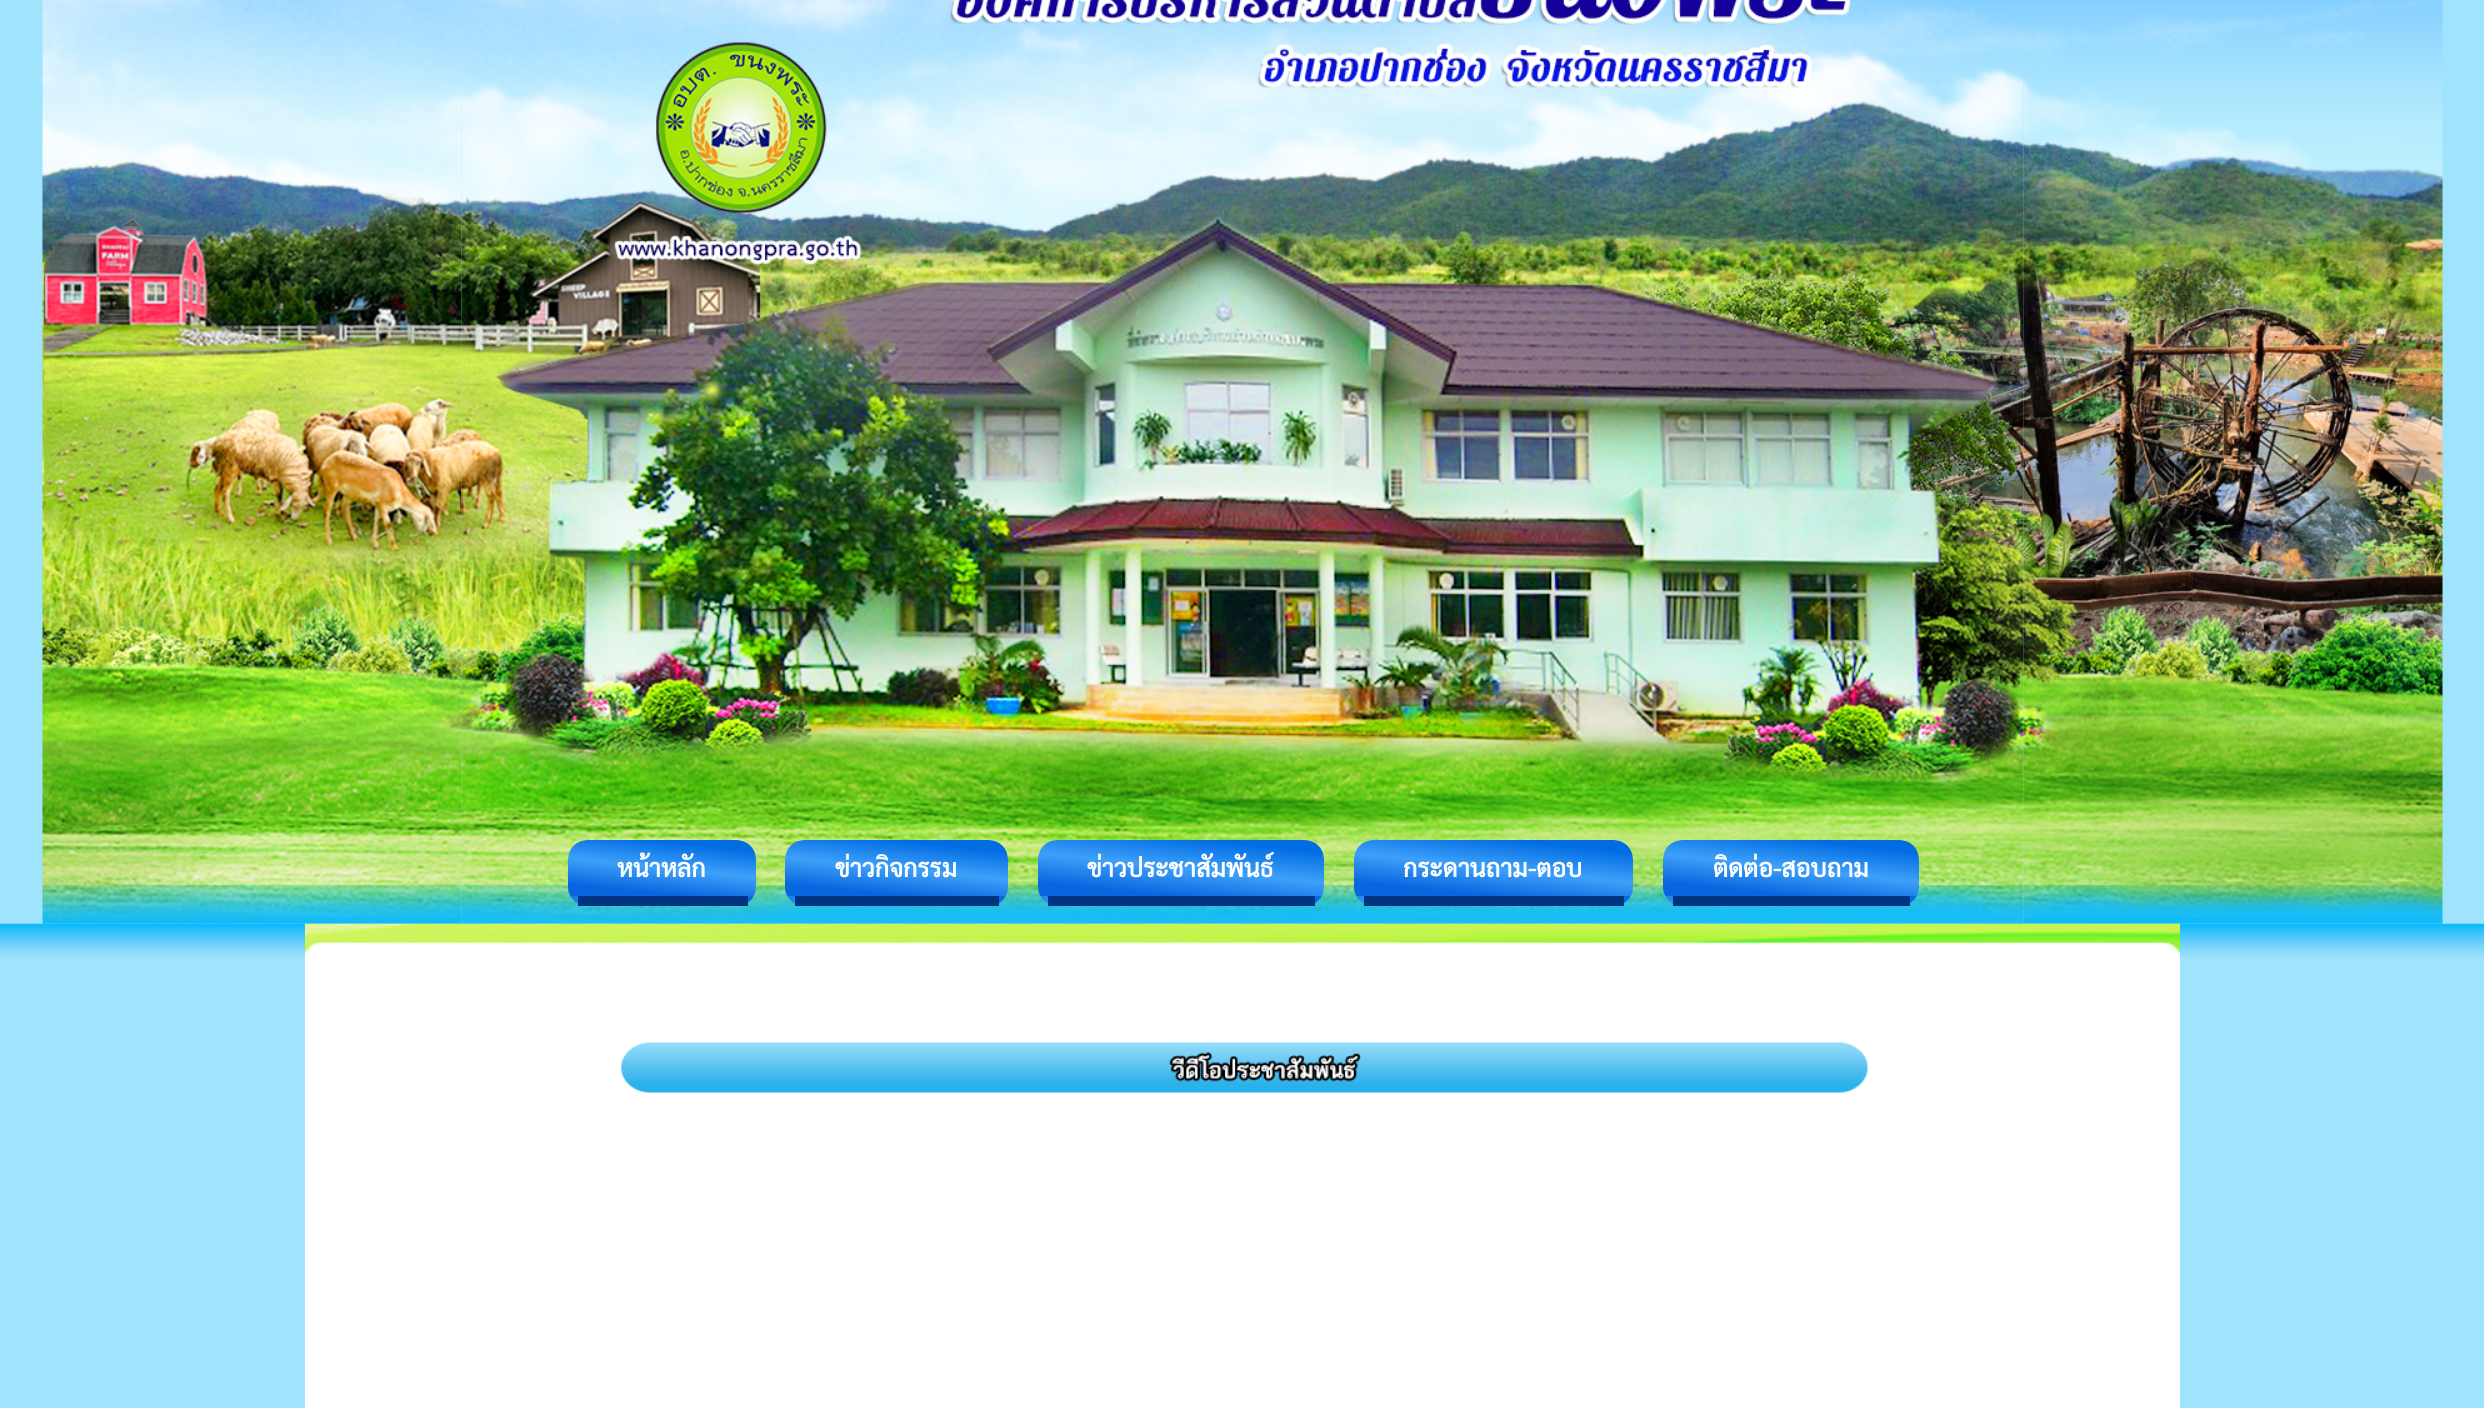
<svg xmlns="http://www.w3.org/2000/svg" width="2484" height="1408">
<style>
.a{font:bold 25px Sarabun;fill:#fff}
</style>
<defs>
<clipPath id="clip1"><rect x="568" y="840" width="188" height="66" rx="19"/></clipPath>
<linearGradient id="g1" gradientUnits="userSpaceOnUse" x1="658" y1="906" x2="666" y2="830"><stop offset="0.16" stop-color="#0866df"/><stop offset="0.5" stop-color="#3ea0f9"/><stop offset="0.85" stop-color="#026de3"/></linearGradient>
<linearGradient id="g2" gradientUnits="userSpaceOnUse" x1="658" y1="962" x2="666" y2="887"><stop offset="0.16" stop-color="#0866df"/><stop offset="0.5" stop-color="#3ea0f9"/><stop offset="0.85" stop-color="#026de3"/></linearGradient>
<clipPath id="clip2"><rect x="785" y="840" width="223" height="66" rx="19"/></clipPath>
<linearGradient id="g3" gradientUnits="userSpaceOnUse" x1="892" y1="908" x2="900" y2="829"><stop offset="0.16" stop-color="#0866df"/><stop offset="0.5" stop-color="#3ea0f9"/><stop offset="0.85" stop-color="#026de3"/></linearGradient>
<linearGradient id="g4" gradientUnits="userSpaceOnUse" x1="892" y1="964" x2="900" y2="885"><stop offset="0.16" stop-color="#0866df"/><stop offset="0.5" stop-color="#3ea0f9"/><stop offset="0.85" stop-color="#026de3"/></linearGradient>
<clipPath id="clip3"><rect x="1038" y="840" width="286" height="66" rx="19"/></clipPath>
<linearGradient id="g5" gradientUnits="userSpaceOnUse" x1="1176" y1="911" x2="1185" y2="825"><stop offset="0.16" stop-color="#0866df"/><stop offset="0.5" stop-color="#3ea0f9"/><stop offset="0.85" stop-color="#026de3"/></linearGradient>
<linearGradient id="g6" gradientUnits="userSpaceOnUse" x1="1176" y1="967" x2="1185" y2="882"><stop offset="0.16" stop-color="#0866df"/><stop offset="0.5" stop-color="#3ea0f9"/><stop offset="0.85" stop-color="#026de3"/></linearGradient>
<clipPath id="clip4"><rect x="1354" y="840" width="279" height="66" rx="19"/></clipPath>
<linearGradient id="g7" gradientUnits="userSpaceOnUse" x1="1489" y1="910" x2="1498" y2="826"><stop offset="0.16" stop-color="#0866df"/><stop offset="0.5" stop-color="#3ea0f9"/><stop offset="0.85" stop-color="#026de3"/></linearGradient>
<linearGradient id="g8" gradientUnits="userSpaceOnUse" x1="1489" y1="967" x2="1498" y2="882"><stop offset="0.16" stop-color="#0866df"/><stop offset="0.5" stop-color="#3ea0f9"/><stop offset="0.85" stop-color="#026de3"/></linearGradient>
<clipPath id="clip5"><rect x="1663" y="840" width="256" height="66" rx="19"/></clipPath>
<linearGradient id="g9" gradientUnits="userSpaceOnUse" x1="1786" y1="909" x2="1795" y2="827"><stop offset="0.16" stop-color="#0866df"/><stop offset="0.5" stop-color="#3ea0f9"/><stop offset="0.85" stop-color="#026de3"/></linearGradient>
<linearGradient id="g10" gradientUnits="userSpaceOnUse" x1="1786" y1="966" x2="1795" y2="883"><stop offset="0.16" stop-color="#0866df"/><stop offset="0.5" stop-color="#3ea0f9"/><stop offset="0.85" stop-color="#026de3"/></linearGradient>
</defs>
<rect width="100%" height="100%" fill="#9fe3fc"/>
<image href="1.png" x="42" y="0" width="420" height="924"/>
<image href="2.png" x="461" y="0" width="1563" height="924"/>
<image href="3.png" x="656" y="42" width="171" height="171"/>
<image href="4.png" x="950" y="0" width="901" height="89"/>
<g clip-path="url(#clip1)">
<path fill="url(#g1)" d="M587 840h150c10.5 0 19 8.5 19 19v37h-188v-37c0-10.5 8.5-19 19-19z"/>
<path fill="url(#g2)" d="M570 896h184v8H570z"/>
</g>
<path fill="#003380" d="M578 896h170v10H578z"/>
<g clip-path="url(#clip2)">
<path fill="url(#g3)" d="M804 840h185c10.5 0 19 8.5 19 19v37h-223v-37c0-10.5 8.5-19 19-19z"/>
<path fill="url(#g4)" d="M787 896h219v8H787z"/>
</g>
<path fill="#003380" d="M795 896h204v10H795z"/>
<g clip-path="url(#clip3)">
<path fill="url(#g5)" d="M1057 840h248c10.5 0 19 8.5 19 19v37h-286v-37c0-10.5 8.5-19 19-19z"/>
<path fill="url(#g6)" d="M1040 896h282v8H1040z"/>
</g>
<path fill="#003380" d="M1048 896h267v10H1048z"/>
<g clip-path="url(#clip4)">
<path fill="url(#g7)" d="M1373 840h241c10.5 0 19 8.5 19 19v37h-279v-37c0-10.5 8.5-19 19-19z"/>
<path fill="url(#g8)" d="M1356 896h275v8H1356z"/>
</g>
<path fill="#003380" d="M1364 896h260v10H1364z"/>
<g clip-path="url(#clip5)">
<path fill="url(#g9)" d="M1682 840h218c10.5 0 19 8.5 19 19v37h-256v-37c0-10.5 8.5-19 19-19z"/>
<path fill="url(#g10)" d="M1665 896h252v8H1665z"/>
</g>
<path fill="#003380" d="M1673 896h237v10H1673z"/>
<image href="5.png" x="2023" y="0" width="420" height="924"/>
<image href="6.png" x="0" y="923" width="305" height="35"/>
<image href="7.png" x="305" y="923" width="1875" height="89"/>
<path fill="#fff" d="M305 1012h1875v396H305z"/>
<image href="8.png" x="621" y="1042" width="1247" height="51"/>
<image href="9.png" x="2180" y="923" width="304" height="35"/>
<text class="a" x="617" y="877">หน้าหลัก</text>
<text class="a" x="835" y="877">ข่าวกิจกรรม</text>
<text class="a" x="1087" y="877">ข่าวประชาสัมพันธ์</text>
<text class="a" x="1403" y="877">กระดานถาม-ตอบ</text>
<text class="a" x="1713" y="877">ติดต่อ-สอบถาม</text>
</svg>
